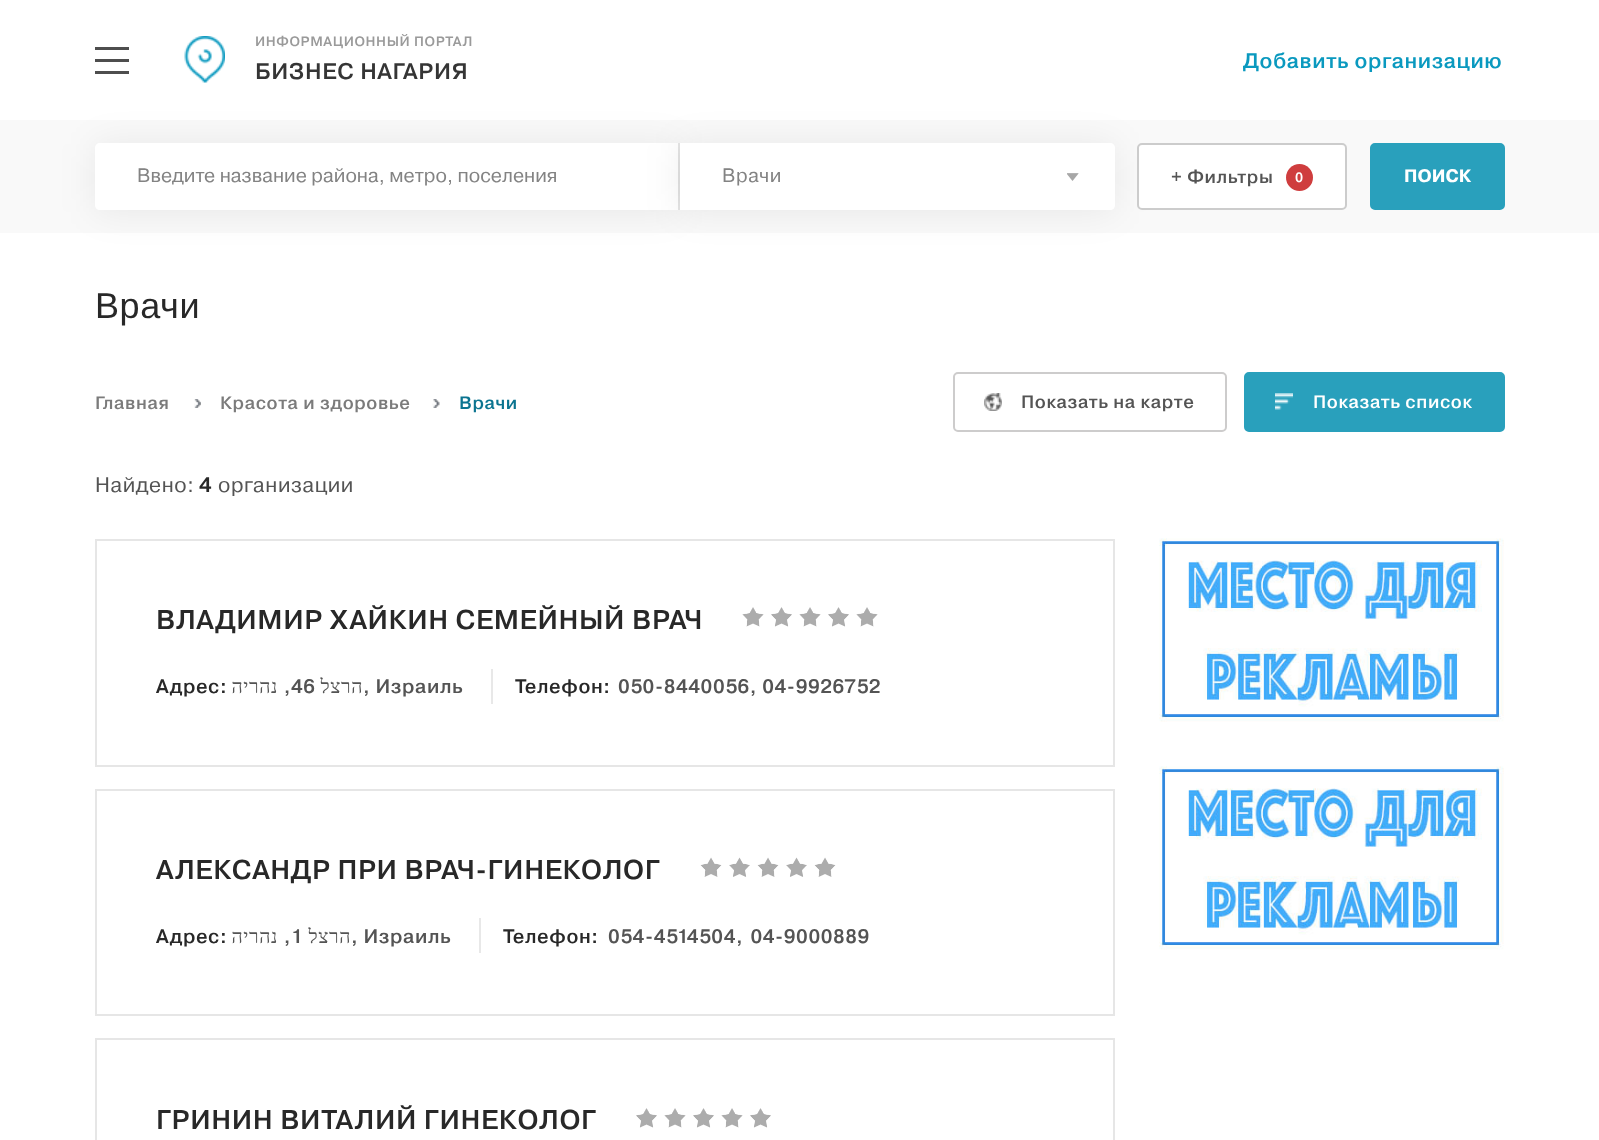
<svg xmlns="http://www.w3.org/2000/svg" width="1599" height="1140">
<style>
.a{font:500 13.5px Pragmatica;letter-spacing:0.6px;fill:#9a9a9a}
.b{font:500 22.5px Pragmatica;letter-spacing:0.6px;fill:#353535}
.c{font:500 21px Pragmatica;letter-spacing:0.6px;fill:#0a99bf}
.d{font:19.5px Pragmatica;fill:#838383}
.e{font:19.5px Pragmatica;letter-spacing:0.6px;fill:#838383}
.f{font:500 18px Pragmatica;letter-spacing:0.6px;fill:#545454}
.g{font:500 13.5px Pragmatica;letter-spacing:0.6px;fill:#fff}
.h{font:bold 18px Pragmatica;fill:#fff}
.i{font:36px Liberation Sans;letter-spacing:0.6px;fill:#282828}
.j{font:500 18px Pragmatica;letter-spacing:0.6px;fill:#7b7b7b}
.k{font:500 18px Pragmatica;letter-spacing:0.6px;fill:#0b7490}
.l{font:500 18px Pragmatica;letter-spacing:0.6px;fill:#fff}
.m{font:21px Pragmatica;letter-spacing:0.6px;fill:#545454}
.n{font:500 21px Pragmatica;letter-spacing:0.6px;fill:#282828}
.o{font:500 27px Pragmatica;letter-spacing:0.6px;fill:#282828}
.p{font:500 19.5px Pragmatica;letter-spacing:0.6px;fill:#282828}
.q{font:19.5px Liberation Serif;letter-spacing:0.6px;direction:rtl;fill:#545454}
.r{font:500 19.5px Pragmatica;letter-spacing:0.6px;direction:rtl;fill:#545454}
.s{font:500 19.5px Pragmatica;letter-spacing:0.6px;fill:#545454}
</style>
<rect width="100%" height="100%" fill="#fff"/>
<path fill="#4e4e4e" d="M95 47h34v3H95z"/>
<path fill="#4e4e4e" d="M95 59h34v3H95z"/>
<path fill="#4e4e4e" d="M95 71h34v3H95z"/>
<image href="1.png" x="184" y="36" width="41" height="47"/>
<path fill="#f9f9f9" d="M0 120h1599v113H0z"/>
<path fill="#e9e9e9" d="M678 143h2v67H678z"/>
<rect fill="#00000012" filter="blur(18px)" x="95" y="144" width="583" height="68" rx="5"/>
<path fill="#fff" d="M100 143h578v67h-578c-3 0-5-2-5-5v-57c0-3 2-5 5-5z"/>
<rect fill="#00000012" filter="blur(18px)" x="680" y="144" width="435" height="68" rx="5"/>
<path fill="#fff" d="M680 143h430c3 0 5 2 5 5v57c0 3-2 5-5 5h-430z"/>
<image href="2.png" x="1067" y="173" width="12" height="8"/>
<rect fill="#fff" x="1137" y="143" width="210" height="67" rx="5"/>
<rect fill="none" stroke="#5756564d" stroke-width="2" x="1138" y="144" width="208" height="65" rx="4"/>
<circle fill="#cf3d3e" cx="1299.5" cy="177.5" r="13.5"/>
<rect fill="#29a0bc" stroke="#29a0bc" stroke-width="2" x="1371" y="144" width="133" height="65" rx="4"/>
<image href="3.png" x="194" y="399" width="7" height="9"/>
<image href="4.png" x="432" y="399" width="8" height="9"/>
<rect fill="none" stroke="#cdcccc" stroke-width="2" x="954" y="373" width="272" height="58" rx="4"/>
<image href="5.png" x="984" y="393" width="18" height="18"/>
<rect fill="#29a0bc" stroke="#29a0bc" stroke-width="2" x="1245" y="373" width="259" height="58" rx="4"/>
<image href="6.png" x="1275" y="393" width="18" height="17"/>
<path fill="none" stroke="#e6e6e6" stroke-width="2" d="M96 540h1018v226H96z"/>
<image href="7.png" x="742" y="607" width="22" height="20"/>
<image href="8.png" x="771" y="607" width="21" height="20"/>
<image href="7.png" x="799" y="607" width="22" height="20"/>
<image href="8.png" x="828" y="607" width="21" height="20"/>
<image href="7.png" x="856" y="607" width="22" height="20"/>
<path fill="#e8e8e8" d="M491 669h2v35H491z"/>
<path fill="none" stroke="#e6e6e6" stroke-width="2" d="M96 790h1018v225H96z"/>
<image href="9.png" x="700" y="857" width="22" height="20"/>
<image href="10.png" x="729" y="857" width="21" height="20"/>
<image href="9.png" x="757" y="857" width="22" height="20"/>
<image href="10.png" x="786" y="857" width="21" height="20"/>
<image href="9.png" x="814" y="857" width="22" height="20"/>
<path fill="#e8e8e8" d="M479 918h2v35H479z"/>
<path fill="none" stroke="#e6e6e6" stroke-width="2" d="M96 1039h1018v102H96z"/>
<image href="8.png" x="636" y="1108" width="21" height="20"/>
<image href="7.png" x="664" y="1108" width="22" height="20"/>
<image href="8.png" x="693" y="1108" width="21" height="20"/>
<image href="7.png" x="721" y="1108" width="22" height="20"/>
<image href="8.png" x="750" y="1108" width="21" height="20"/>
<image href="11.png" x="1159" y="538" width="345" height="184"/>
<image href="11.png" x="1159" y="766" width="345" height="184"/>
<text class="a" x="255" y="46">ИНФОРМАЦИОННЫЙ ПОРТАЛ</text>
<text class="b" x="255" y="79">БИЗНЕС НАГАРИЯ</text>
<text class="c" x="1243" y="68">Добавить организацию</text>
<text class="d" x="137" y="182">Введите название района, метро, поселения</text>
<text class="e" x="722" y="182">Врачи</text>
<text class="f" x="1171" y="183">+ Фильтры</text>
<text class="g" x="1295" y="182">0</text>
<text class="h" x="1404" y="182">ПОИСК</text>
<text class="i" x="95" y="318">Врачи</text>
<text class="j" x="95" y="409">Главная</text>
<text class="j" x="220" y="409">Красота и здоровье</text>
<text class="k" x="459" y="409">Врачи</text>
<text class="f" x="1021" y="408">Показать на карте</text>
<text class="l" x="1313" y="408">Показать список</text>
<text class="m" x="95" y="492">Найдено:</text>
<text class="n" x="199" y="492">4</text>
<text class="m" x="218" y="492">организации</text>
<text class="o" x="156" y="629">ВЛАДИМИР ХАЙКИН СЕМЕЙНЫЙ ВРАЧ</text>
<text class="p" x="156" y="693">Адрес:</text>
<text class="q" x="278" y="693">נהריה</text>
<text class="r" x="291" y="693">,</text>
<text class="s" x="291" y="693">46</text>
<text class="q" x="363" y="693">הרצל</text>
<text class="s" x="363" y="693">, Израиль</text>
<text class="p" x="515" y="693">Телефон:</text>
<text class="s" x="618" y="693">050-8440056, 04-9926752</text>
<text class="o" x="156" y="879">АЛЕКСАНДР ПРИ ВРАЧ-ГИНЕКОЛОГ</text>
<text class="p" x="156" y="943">Адрес:</text>
<text class="q" x="278" y="943">נהריה</text>
<text class="r" x="291" y="943">,</text>
<text class="s" x="291" y="943">1</text>
<text class="q" x="351" y="943">הרצל</text>
<text class="s" x="351" y="943">, Израиль</text>
<text class="p" x="503" y="943">Телефон:</text>
<text class="s" x="608" y="943" word-spacing="2">054-4514504, 04-9000889</text>
<text class="o" x="156" y="1129">ГРИНИН ВИТАЛИЙ ГИНЕКОЛОГ</text>
</svg>
